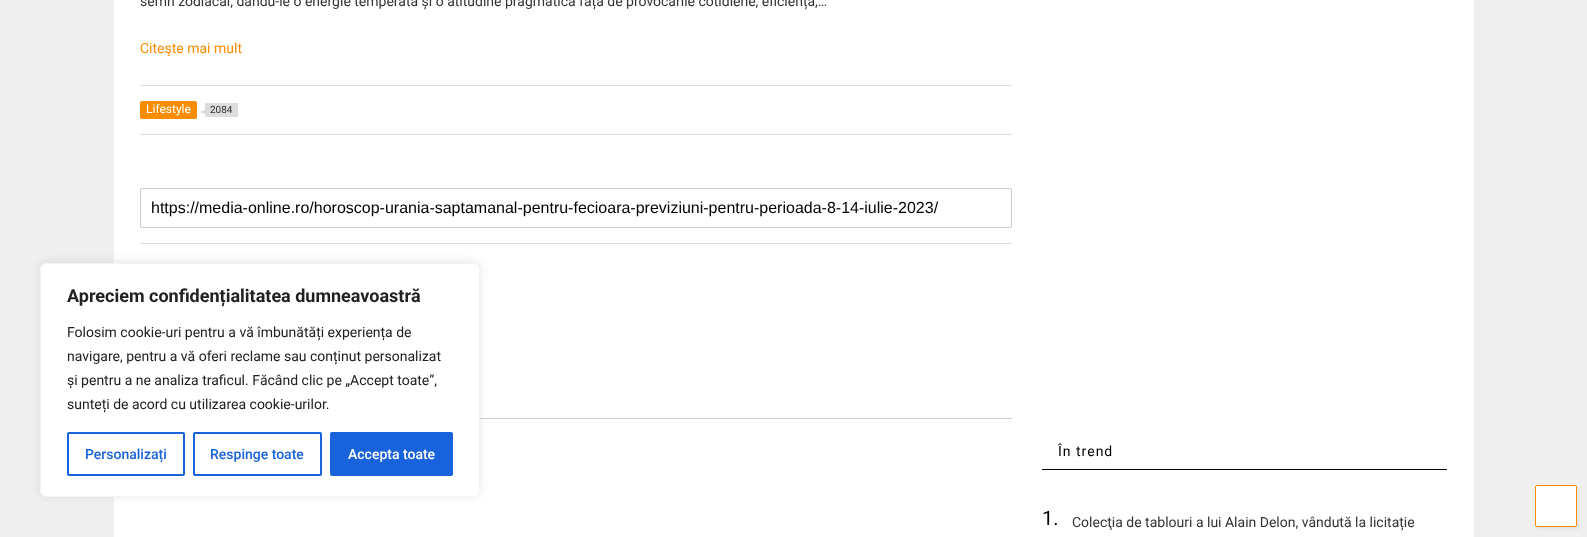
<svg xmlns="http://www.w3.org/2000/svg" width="1587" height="537">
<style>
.a{font:14px Roboto;fill:#333}
.b{font:14px Roboto;fill:#f88c00}
.c{font:12px Roboto;fill:#fff}
.d{font:10px Roboto;fill:#333}
.e{font:16px Liberation Sans;fill:#000}
.f{font:14px Roboto;letter-spacing:1px;fill:#000}
.g{font:20px Roboto;fill:#000}
.h{font:bold 18px Roboto;fill:#212121}
.i{font:14px Roboto;fill:#212121}
.j{font:500 14px Roboto;fill:#1863dc}
.k{font:500 14px Roboto;fill:#fff}
</style>
<rect width="100%" height="100%" fill="#efefef"/>
<path fill="#fff" d="M114 0h1360v537H114z"/>
<path fill="#ddd" d="M140 85h872v1H140z"/>
<rect fill="#f88c00" x="140" y="101" width="57" height="18" rx="2"/>
<path fill="#ddd" d="M205 103h33v14H205z"/>
<path fill="#ddd" d="M207 109v6l-7-3z"/>
<path fill="#ddd" d="M140 134h872v1H140z"/>
<rect fill="none" stroke="#ccc" x="140.5" y="188.5" width="871" height="39" rx="1.5"/>
<path fill="#ddd" d="M140 243h872v1H140z"/>
<path fill="#ccc" d="M480 418h532v1H480z"/>
<path fill="#000" d="M1042 469h405v1H1042z"/>
<rect fill="#acabab4d" filter="blur(5px)" x="40" y="262" width="440" height="234" rx="6"/>
<rect fill="#fff" stroke="#f4f4f4" x="40.5" y="263.5" width="439" height="233" rx="5.5"/>
<rect fill="none" stroke="#1863dc" stroke-width="2" x="68" y="433" width="116" height="42" rx="1"/>
<rect fill="none" stroke="#1863dc" stroke-width="2" x="194" y="433" width="127" height="42" rx="1"/>
<rect fill="#1863dc" stroke="#1863dc" stroke-width="2" x="331" y="433" width="121" height="42" rx="1"/>
<rect fill="#0000000d" filter="blur(1.5px)" x="1537" y="487" width="42" height="42" rx="2"/>
<rect fill="#fff" stroke="#f88c00" x="1535.5" y="485.5" width="41" height="41" rx="1.5"/>
<text class="a" x="140" y="6">semn zodiacal, dându-le o energie temperată și o atitudine pragmatică față de provocările cotidiene, eficiență,…</text>
<text class="b" x="140" y="53">Citeşte mai mult</text>
<text class="c" x="146" y="113">Lifestyle</text>
<text class="d" x="210" y="113">2084</text>
<text class="e" x="151" y="213">https://media-online.ro/horoscop-urania-saptamanal-pentru-fecioara-previziuni-pentru-perioada-8-14-iulie-2023/</text>
<text class="f" x="1058" y="456">În trend</text>
<text class="g" x="1042" y="525">1.</text>
<text class="a" x="1072" y="527">Colecţia de tablouri a lui Alain Delon, vândută la licitație</text>
<text class="h" x="67" y="302">Apreciem confidențialitatea dumneavoastră</text>
<text class="i" x="67" y="337">Folosim cookie-uri pentru a vă îmbunătăți experiența de</text>
<text class="i" x="67" y="361">navigare, pentru a vă oferi reclame sau conținut personalizat</text>
<text class="i" x="67" y="385">și pentru a ne analiza traficul. Făcând clic pe „Accept toate”,</text>
<text class="i" x="67" y="409">sunteți de acord cu utilizarea cookie-urilor.</text>
<text class="j" x="85" y="459">Personalizați</text>
<text class="j" x="210" y="459">Respinge toate</text>
<text class="k" x="348" y="459">Accepta toate</text>
</svg>
